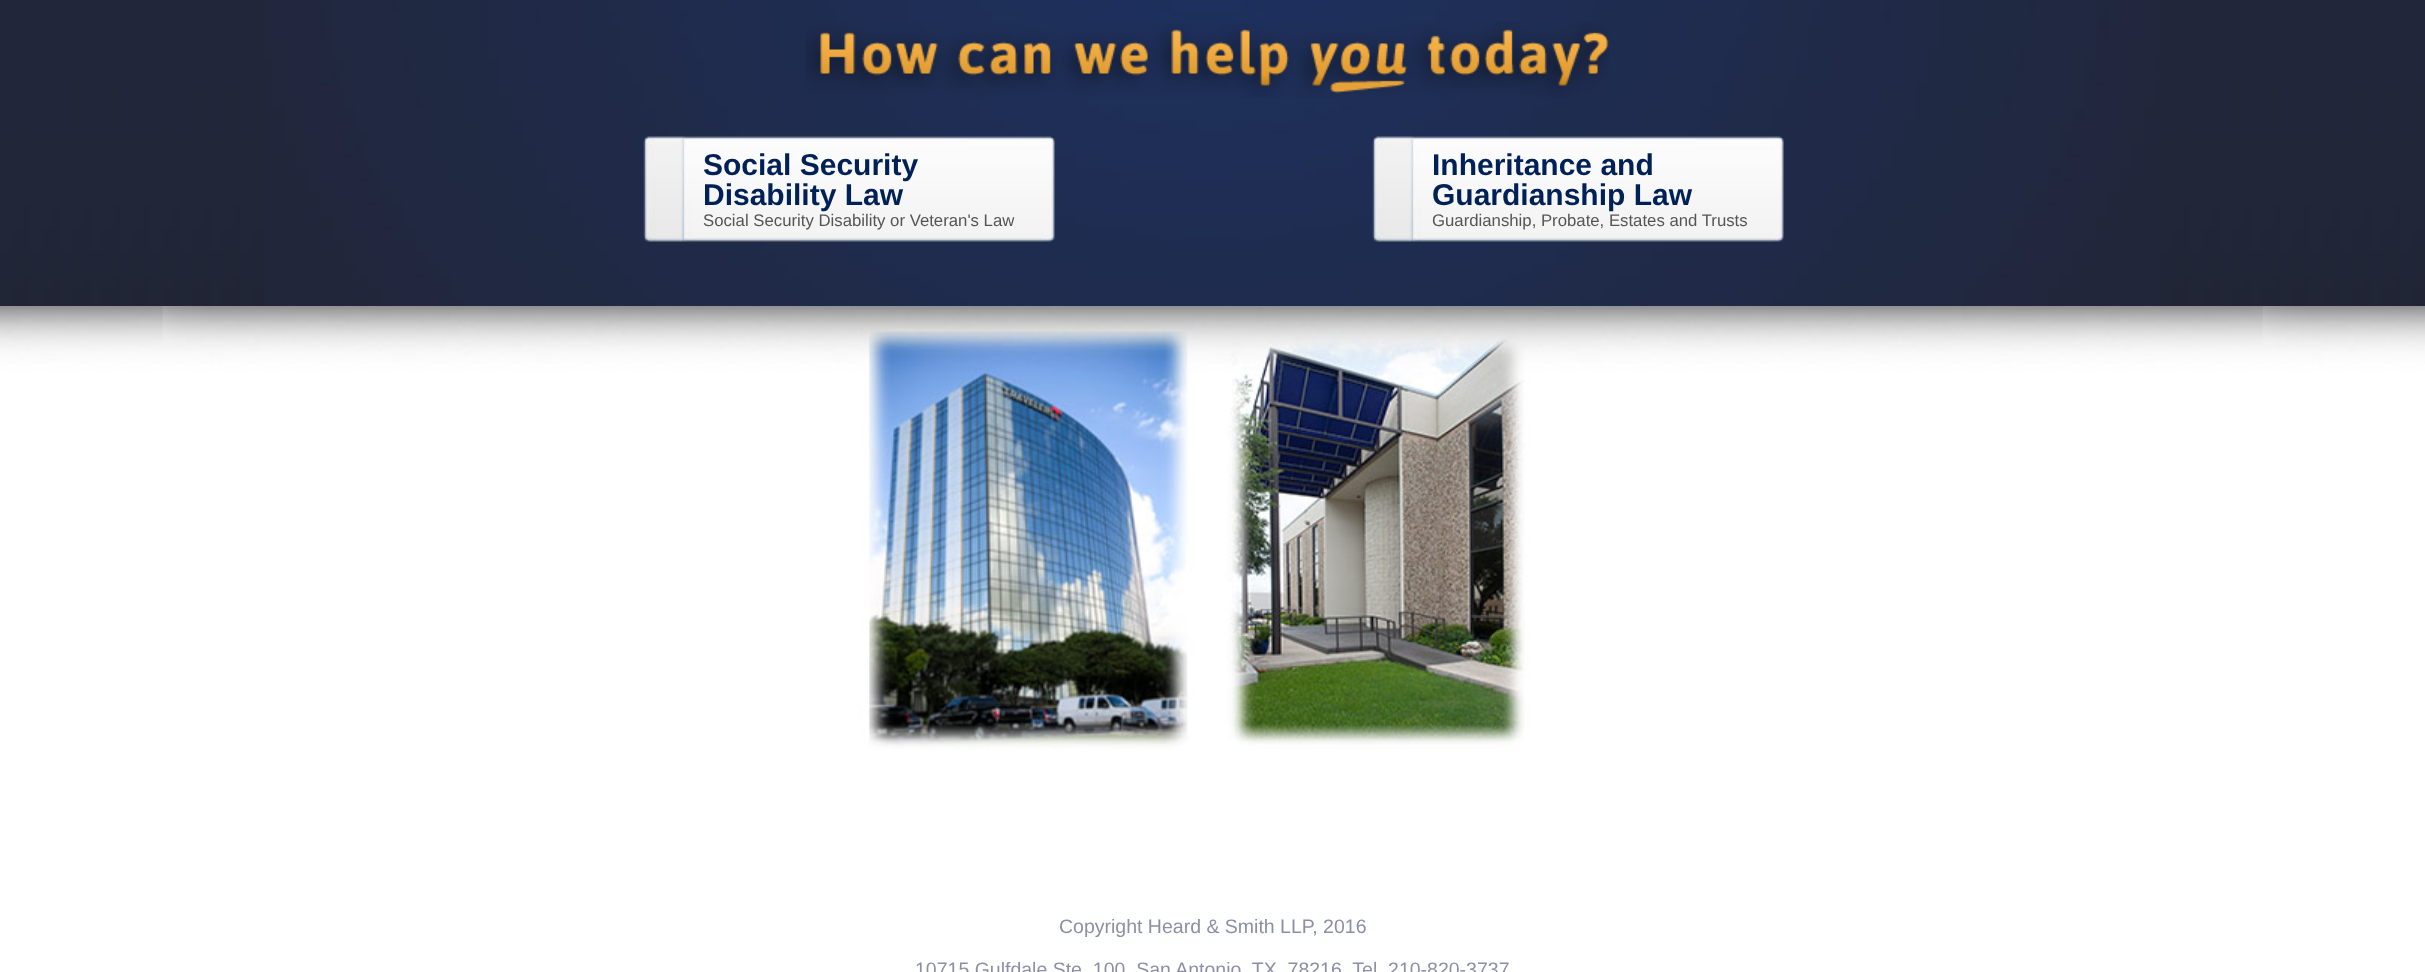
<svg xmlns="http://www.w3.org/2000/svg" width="2425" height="972">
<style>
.a{font:bold 30px Liberation Sans;fill:#002157}
.b{font:16.75px Liberation Sans;fill:#555}
.c{font:19.5px Liberation Sans;fill:#8d8fa7}
</style>
<rect width="100%" height="100%" fill="#fff"/>
<image href="1.png" x="0" y="0" width="2425" height="306"/>
<image href="2.png" x="264" y="0" width="1896" height="306"/>
<image href="3.png" x="805" y="22" width="804" height="76"/>
<image href="4.png" x="643" y="136" width="412" height="106"/>
<image href="5.png" x="1372" y="136" width="412" height="106"/>
<image href="6.png" x="0" y="306" width="2425" height="444"/>
<text class="a" x="703" y="175">Social Security</text>
<text class="a" x="703" y="205">Disability Law</text>
<text class="b" x="703" y="226">Social Security Disability or Veteran's Law</text>
<text class="a" x="1432" y="175">Inheritance and</text>
<text class="a" x="1432" y="205">Guardianship Law</text>
<text class="b" x="1432" y="226">Guardianship, Probate, Estates and Trusts</text>
<text class="c" x="1059" y="933">Copyright Heard &amp; Smith LLP, 2016</text>
<text class="c" x="915" y="976">10715 Gulfdale Ste. 100, San Antonio, TX, 78216, Tel. 210-820-3737</text>
</svg>
